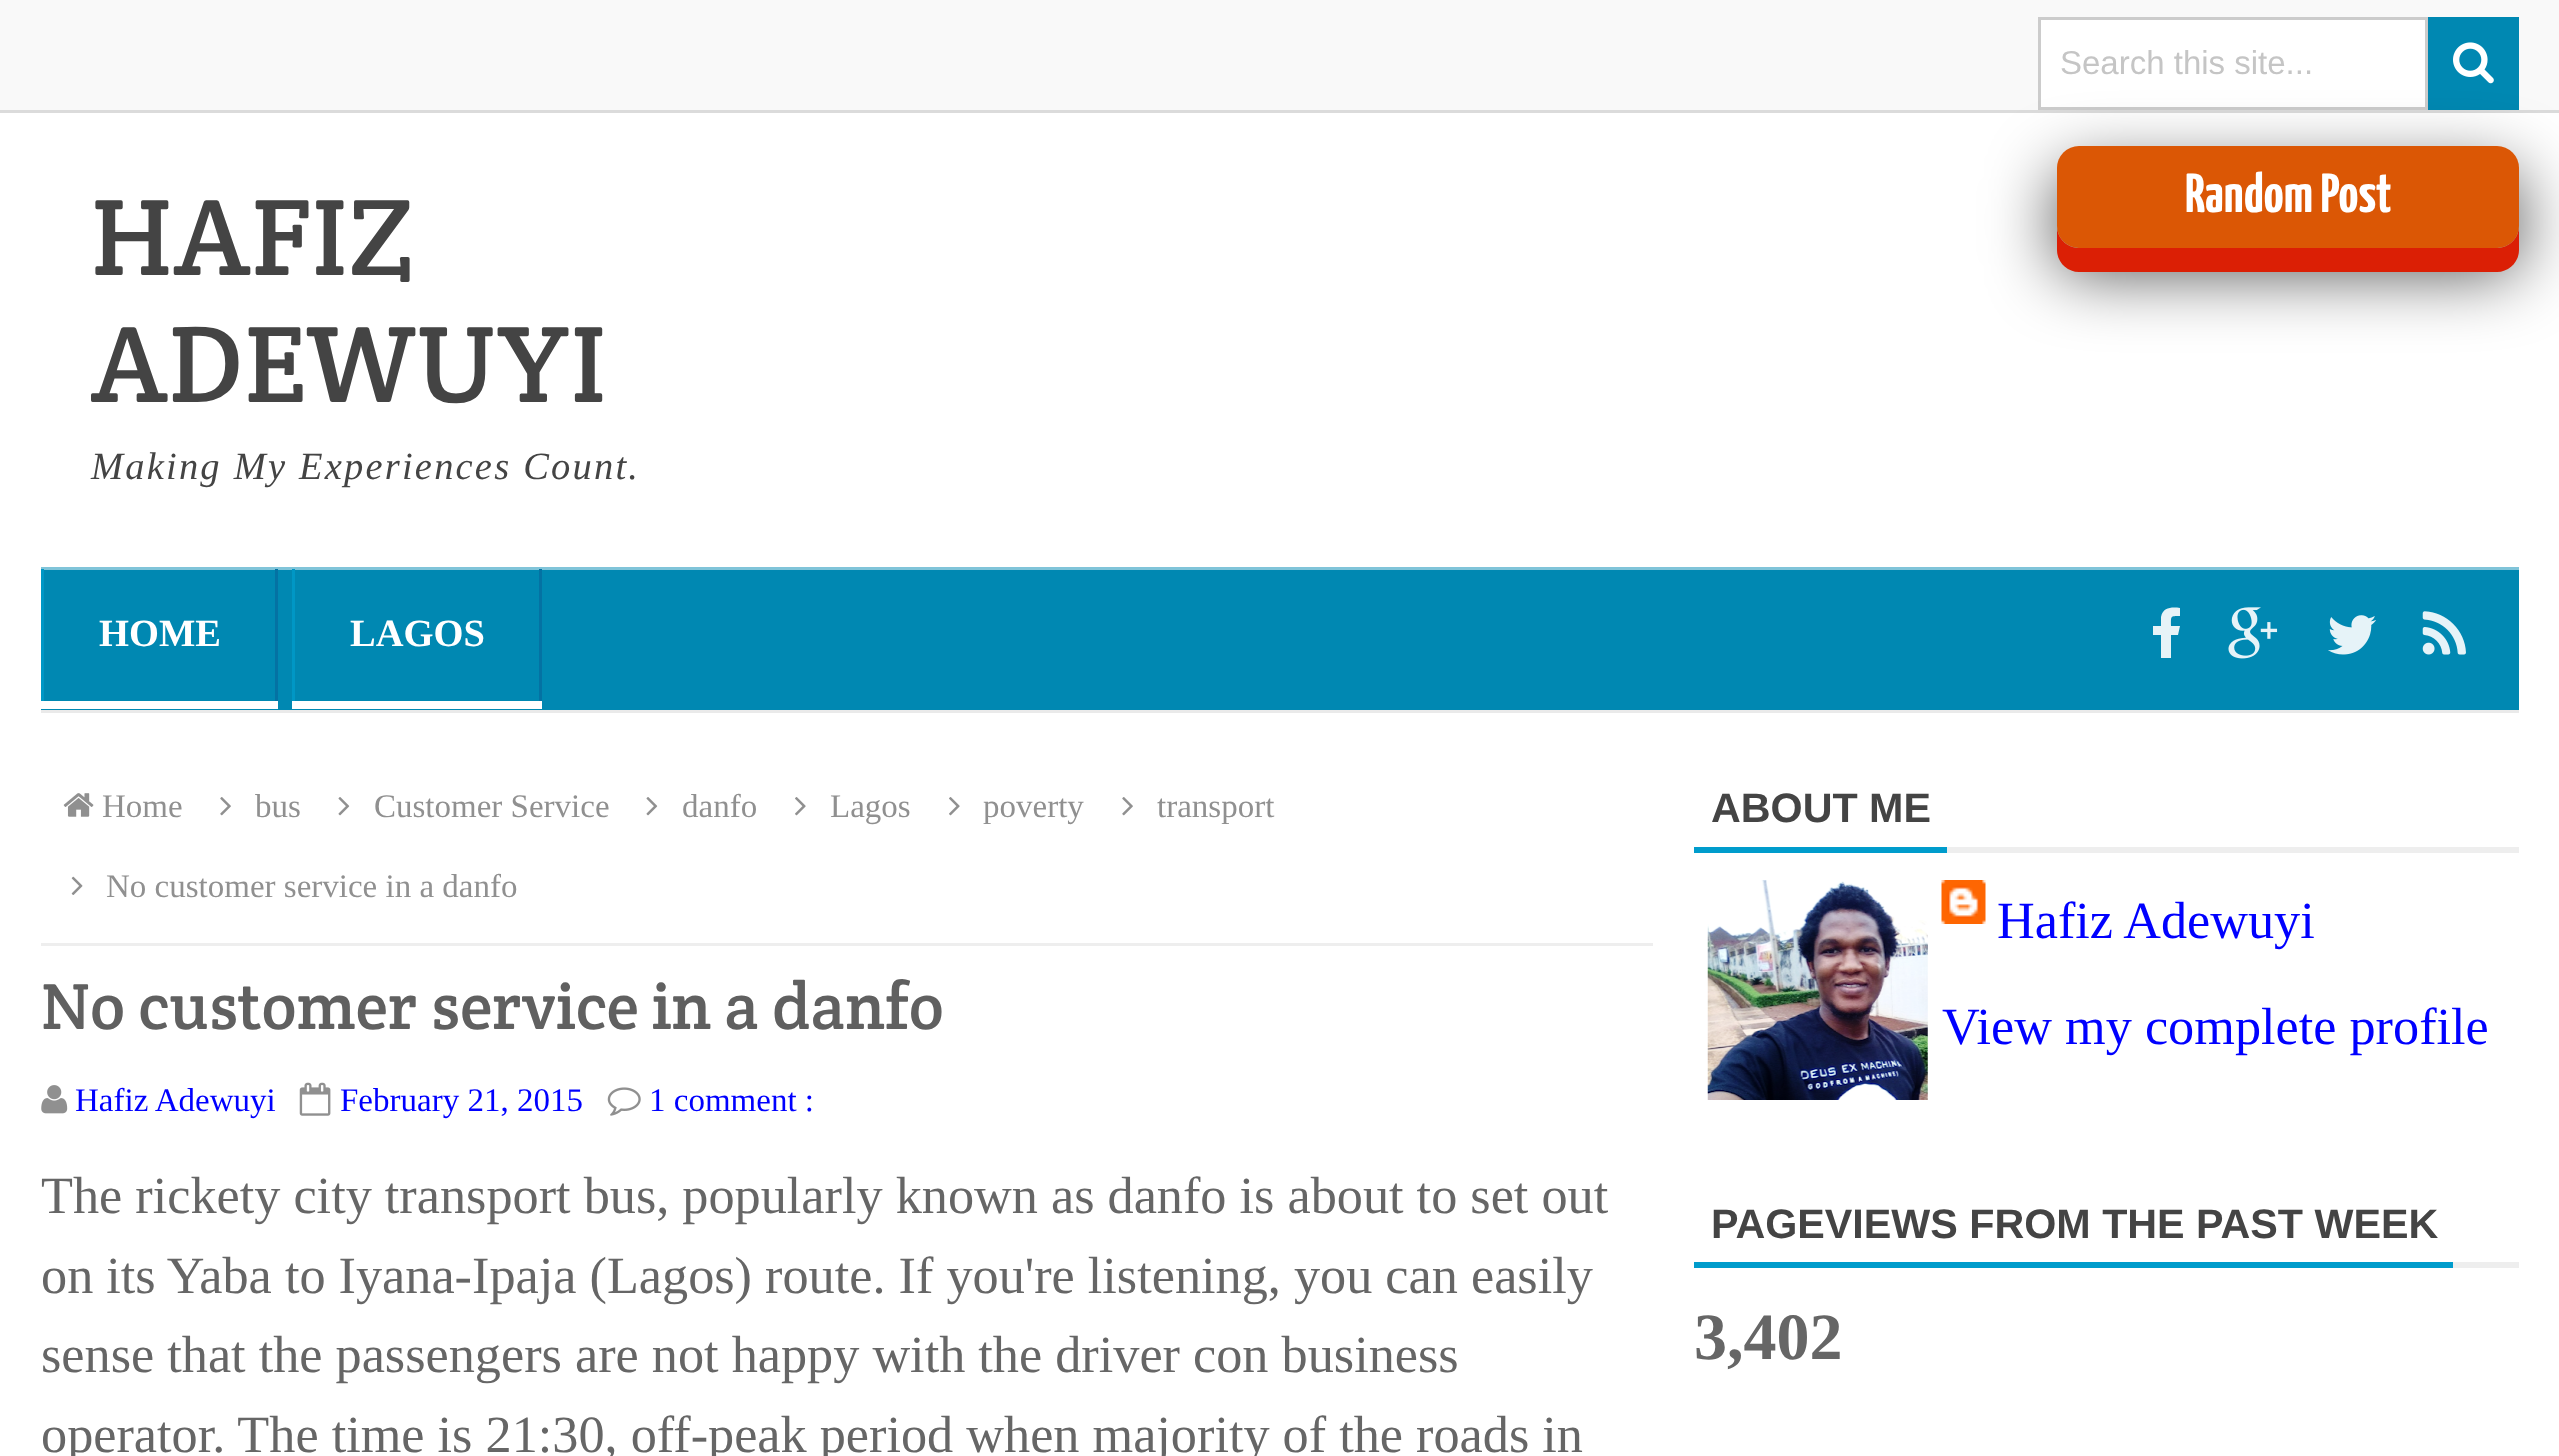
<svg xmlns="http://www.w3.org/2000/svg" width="2559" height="1456">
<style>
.a{font:33px Liberation Sans;fill:#c5c5c5}
.b{font:bold 55px Yanone Kaffeesatz;fill:#fff}
.c{font:110px Crete Round;letter-spacing:1px;fill:#444}
.d{font:italic 38.5px Liberation Serif;letter-spacing:2.2px;fill:#444}
.e{font:bold 38.5px Liberation Serif;fill:#fff}
.f{font:33px Liberation Serif;fill:#909090}
.g{font:66px Crete Round;fill:#606060}
.h{font:33px Liberation Serif;fill:#00f}
.i{font:52.25px Liberation Serif;fill:#666}
.j{font:bold 41.25px Liberation Sans;fill:#444}
.k{font:52.25px Liberation Serif;fill:#00f}
.l{font:bold 66px Liberation Serif;fill:#666}
</style>
<rect width="100%" height="100%" fill="#fff"/>
<path fill="#f9f9f9" d="M0 0h2559v110H0z"/>
<path fill="#dbdbdb" d="M0 110h2559v3H0z"/>
<path fill="#fff" stroke="#ccc" stroke-width="3" d="M2039.5 18.5h387v90H2039.5z"/>
<path fill="#0088b2" d="M2428 17h91v93H2428z"/>
<image href="1.png" x="2453" y="42" width="41" height="42"/>
<rect fill="#000000b3" filter="blur(34.5px)" x="2057" y="171" width="462" height="101" rx="22"/>
<path fill="#db1f05" d="M2057 226v24c0 12 10 22 22 22h418c12 0 22-10 22-22v-24c0 12-10 22-22 22h-418c-12 0-22-10-22-22z"/>
<rect fill="#db5705" x="2057" y="146" width="462" height="102" rx="22"/>
<path fill="#0088b2" d="M41 570h2478v140H41z"/>
<path fill="#80c4d9" d="M41 567h2478v3H41z"/>
<path fill="#eaeaea" d="M41 710h2478v3H41z"/>
<path fill="#0472a3" d="M275 569h3v132H275z"/>
<path fill="#0097c5" d="M41 569h3v132H41z"/>
<path fill="#fff" d="M41 701h237v8H41z"/>
<path fill="#0472a3" d="M539 569h3v132H539z"/>
<path fill="#0097c5" d="M292 569h3v132H292z"/>
<path fill="#fff" d="M292 701h250v8H292z"/>
<path fill="#e6f3f7" d="M2180 608v8c-10 0-9 0-9 10h9l-2 9h-7v23h-10v-23h-8v-9h8v-9c2-10 11-10 19-9z"/>
<image href="2.png" x="2228" y="607" width="50" height="52"/>
<image href="3.png" x="2328" y="615" width="48" height="40"/>
<image href="4.png" x="2422" y="611" width="44" height="44"/>
<path fill="#eee" d="M41 943h1612v3H41z"/>
<image href="5.png" x="63" y="793" width="31" height="24"/>
<image href="6.png" x="220" y="797" width="11" height="19"/>
<image href="7.png" x="338" y="797" width="12" height="19"/>
<image href="7.png" x="646" y="797" width="12" height="19"/>
<image href="8.png" x="795" y="797" width="11" height="19"/>
<image href="8.png" x="949" y="797" width="11" height="19"/>
<image href="6.png" x="1122" y="797" width="11" height="19"/>
<image href="9.png" x="71" y="876" width="12" height="19"/>
<image href="10.png" x="41" y="1085" width="27" height="29"/>
<image href="11.png" x="299" y="1082" width="32" height="34"/>
<image href="12.png" x="607" y="1087" width="34" height="29"/>
<path fill="#eee" d="M1947 847h572v6H1947z"/>
<path fill="#009ccc" d="M1694 847h253v6H1694z"/>
<image href="13.png" x="1707" y="880" width="221" height="220"/>
<image href="14.png" x="1941" y="880" width="45" height="44"/>
<path fill="#eee" d="M2453 1262h66v6H2453z"/>
<path fill="#009ccc" d="M1694 1262h759v6H1694z"/>
<text class="a" x="2060" y="74">Search this site...</text>
<text class="b" x="2185" y="212">Random Post</text>
<text class="c" x="91" y="275">HAFIZ</text>
<text class="c" x="91" y="402">ADEWUYI</text>
<text class="d" x="91" y="479">Making My Experiences Count.</text>
<text class="e" x="99" y="646">HOME</text>
<text class="e" x="350" y="646">LAGOS</text>
<text class="f" x="102" y="817">Home</text>
<text class="f" x="255" y="817">bus</text>
<text class="f" x="374" y="817">Customer Service</text>
<text class="f" x="682" y="817">danfo</text>
<text class="f" x="830" y="817">Lagos</text>
<text class="f" x="983" y="817">poverty</text>
<text class="f" x="1157" y="817">transport</text>
<text class="f" x="106" y="897">No customer service in a danfo</text>
<text class="g" x="41" y="1029">No customer service in a danfo</text>
<text class="h" x="75" y="1111">Hafiz Adewuyi</text>
<text class="h" x="340" y="1111">February 21, 2015</text>
<text class="h" x="649" y="1111">1 comment :</text>
<text class="i" x="41" y="1213">The rickety city transport bus, popularly known as danfo is about to set out</text>
<text class="i" x="41" y="1293">on its Yaba to Iyana-Ipaja (Lagos) route. If you're listening, you can easily</text>
<text class="i" x="41" y="1372">sense that the passengers are not happy with the driver con business</text>
<text class="i" x="41" y="1452">operator. The time is 21:30, off-peak period when majority of the roads in</text>
<text class="j" x="1711" y="822">ABOUT ME</text>
<text class="k" x="1997" y="938">Hafiz Adewuyi</text>
<text class="k" x="1942" y="1044">View my complete profile</text>
<text class="j" x="1711" y="1238">PAGEVIEWS FROM THE PAST WEEK</text>
<text class="l" x="1694" y="1359">3,402</text>
</svg>
